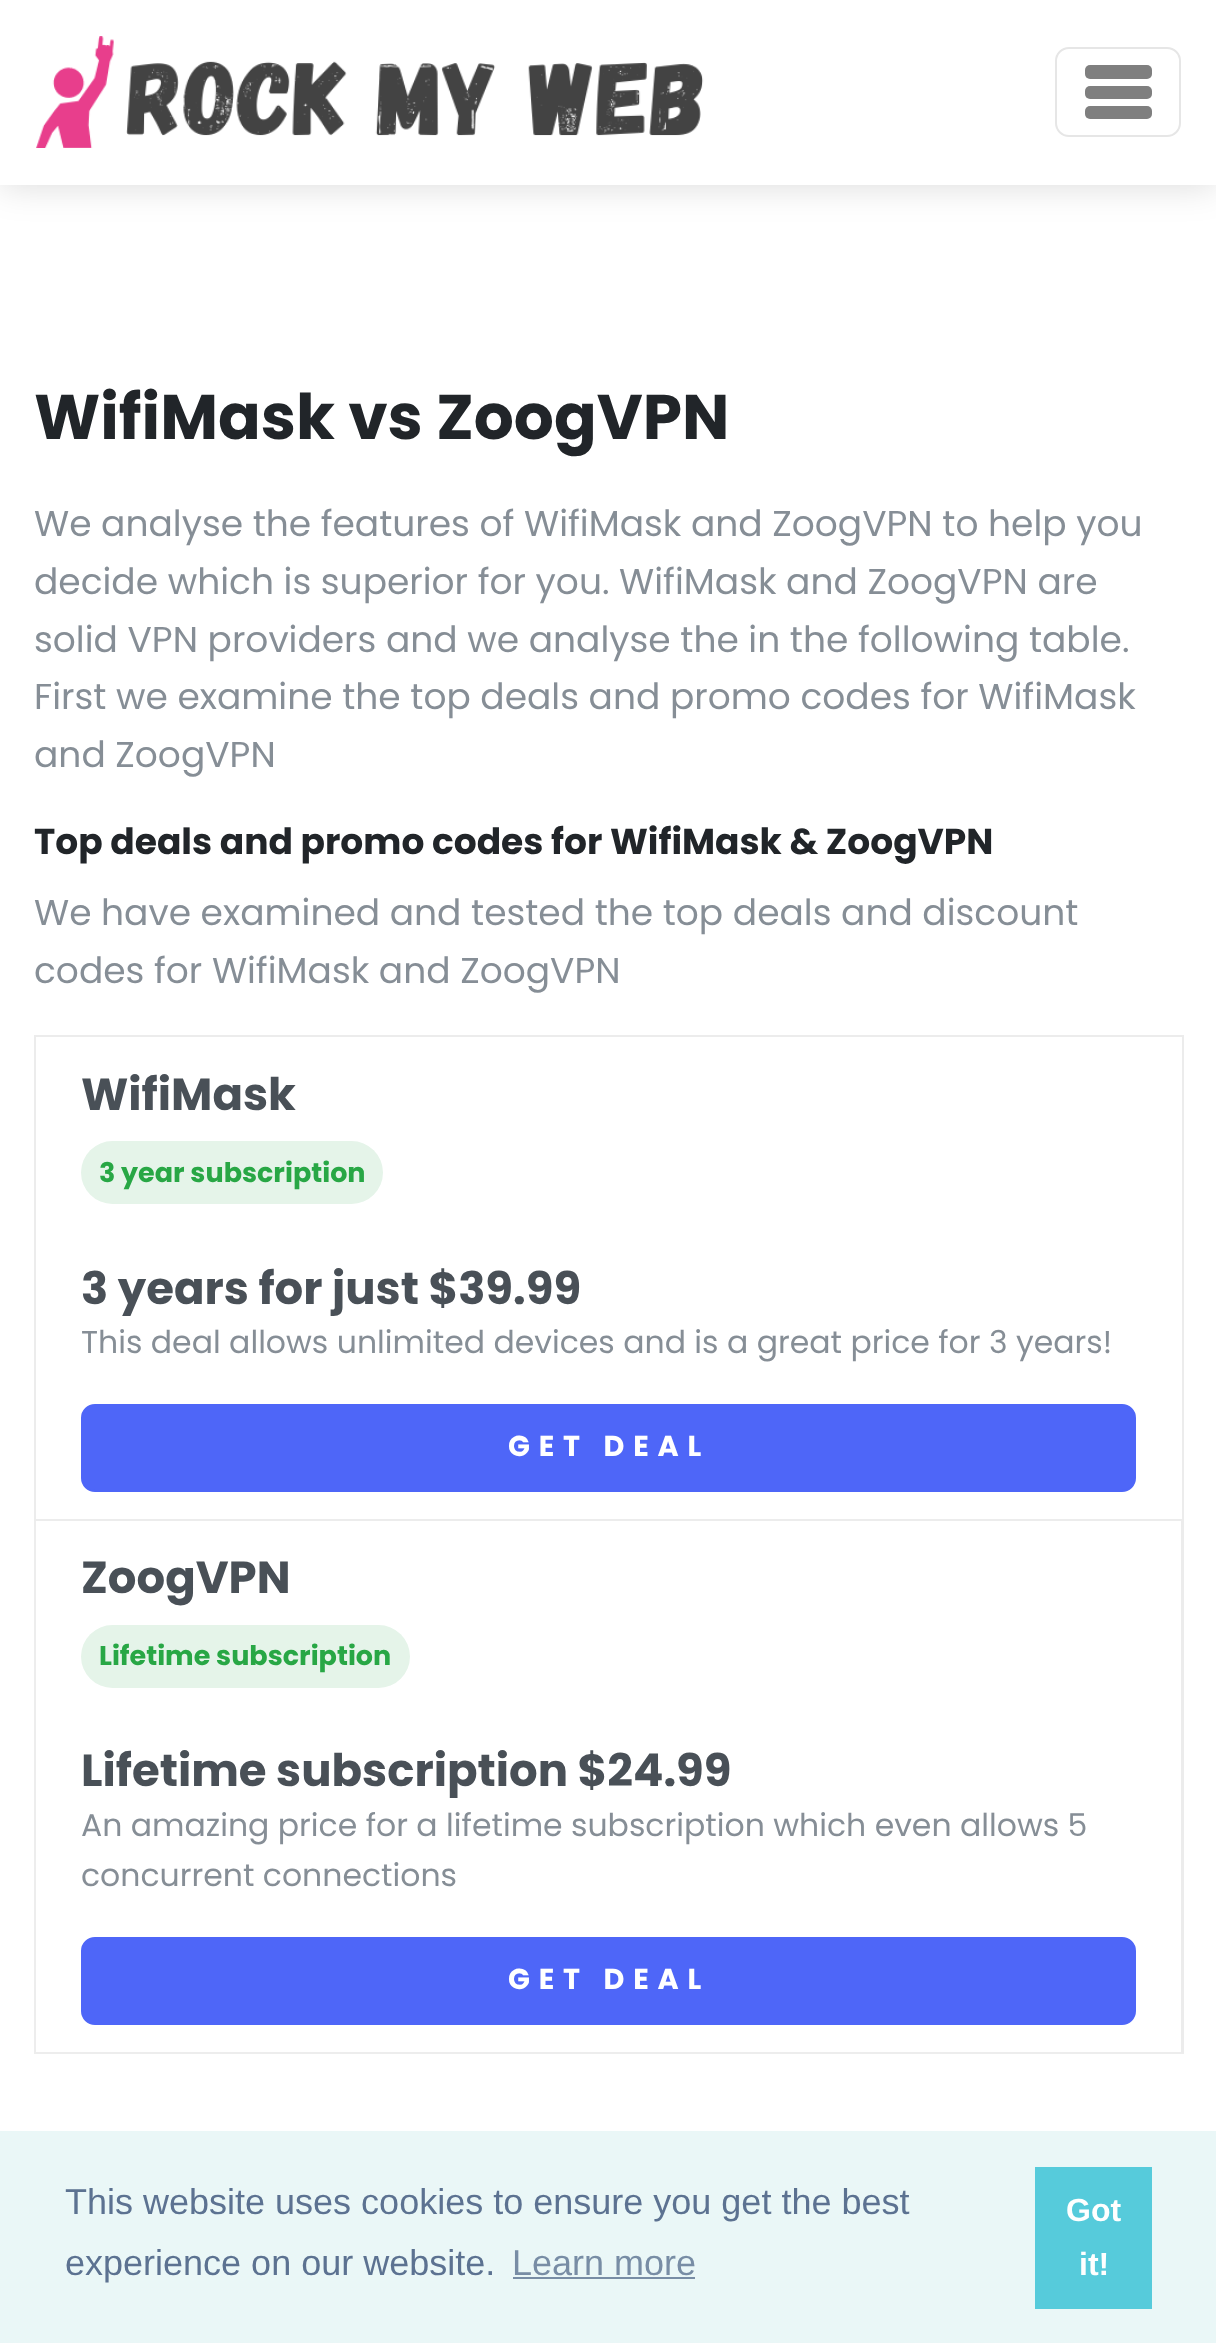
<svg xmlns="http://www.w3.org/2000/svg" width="1216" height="2343">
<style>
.a{font:bold 63px Poppins;fill:#212529}
.b{font:36px Poppins;fill:#868e96}
.c{font:bold 36px Poppins;fill:#212529}
.d{font:bold 45px Poppins;fill:#495057}
.e{font:bold 27px Poppins;fill:#28a745}
.f{font:31.5px Poppins;fill:#868e96}
.g{font:bold 28.75px Poppins;letter-spacing:8.75px;fill:#fff}
.h{font:36px Liberation Sans;fill:#5c7291}
.i{font:36px Liberation Sans;fill:#788da5}
.j{font:bold 32px Liberation Sans;fill:#fff}
</style>
<rect width="100%" height="100%" fill="#fff"/>
<path fill="#00000026" filter="blur(18px)" d="M0 0h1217v185H0z"/>
<path fill="#fff" d="M0 0h1216v185H0z"/>
<image href="1.png" x="36" y="36" width="668" height="112"/>
<rect fill="none" stroke="#e6e6e6" stroke-width="2" x="1056" y="48" width="124" height="88" rx="13"/>
<rect fill="#7f7f7f" x="1085" y="65" width="67" height="14" rx="5"/>
<rect fill="#7f7f7f" x="1085" y="86" width="67" height="13" rx="5"/>
<rect fill="#7f7f7f" x="1085" y="106" width="67" height="13" rx="5"/>
<path fill="none" stroke="#ececec" stroke-width="2" d="M35 1036h1148v484H35z"/>
<rect fill="#e5f4e9" x="81" y="1141" width="302" height="63" rx="31.5"/>
<rect fill="#4e66f8" stroke="#4e66f8" stroke-width="2" x="82" y="1405" width="1053" height="86" rx="13"/>
<path fill="#ececec" d="M1184 1521v533l-3-2v-531z"/>
<path fill="#00000012" d="M1184 2054h-1150l2-2h1145z"/>
<path fill="#00000012" d="M34 2054v-533h2v531z"/>
<rect fill="#e5f4e9" x="81" y="1625" width="329" height="63" rx="31.5"/>
<rect fill="#4e66f8" stroke="#4e66f8" stroke-width="2" x="82" y="1938" width="1053" height="86" rx="13"/>
<path fill="#eaf7f7" d="M0 2131h1216v212H0z"/>
<path fill="#788da5" d="M513 2277h182v2H513z"/>
<path fill="#56cbdb" d="M1035 2167h117v142H1035z"/>
<text class="a" x="34" y="439">WifiMask vs ZoogVPN</text>
<text class="b" x="34" y="536">We analyse the features of WifiMask and ZoogVPN to help you</text>
<text class="b" x="34" y="594">decide which is superior for you. WifiMask and ZoogVPN are</text>
<text class="b" x="34" y="652">solid VPN providers and we analyse the in the following table.</text>
<text class="b" x="34" y="709">First we examine the top deals and promo codes for WifiMask</text>
<text class="b" x="34" y="767">and ZoogVPN</text>
<text class="c" x="34" y="854">Top deals and promo codes for WifiMask &amp; ZoogVPN</text>
<text class="b" x="34" y="925">We have examined and tested the top deals and discount</text>
<text class="b" x="34" y="983">codes for WifiMask and ZoogVPN</text>
<text class="d" x="81" y="1110">WifiMask</text>
<text class="e" x="99" y="1182">3 year subscription</text>
<text class="d" x="81" y="1304">3 years for just $39.99</text>
<text class="f" x="81" y="1353">This deal allows unlimited devices and is a great price for 3 years!</text>
<text class="g" x="508" y="1456">GET DEAL</text>
<text class="d" x="81" y="1593">ZoogVPN</text>
<text class="e" x="99" y="1665">Lifetime subscription</text>
<text class="d" x="81" y="1786">Lifetime subscription $24.99</text>
<text class="f" x="81" y="1836">An amazing price for a lifetime subscription which even allows 5</text>
<text class="f" x="81" y="1886">concurrent connections</text>
<text class="g" x="508" y="1989">GET DEAL</text>
<text class="h" x="65" y="2214">This website uses cookies to ensure you get the best</text>
<text class="h" x="65" y="2275">experience on our website.</text>
<text class="i" x="512" y="2275">Learn more</text>
<text class="j" x="1066" y="2221">Got</text>
<text class="j" x="1079" y="2275">it!</text>
</svg>
